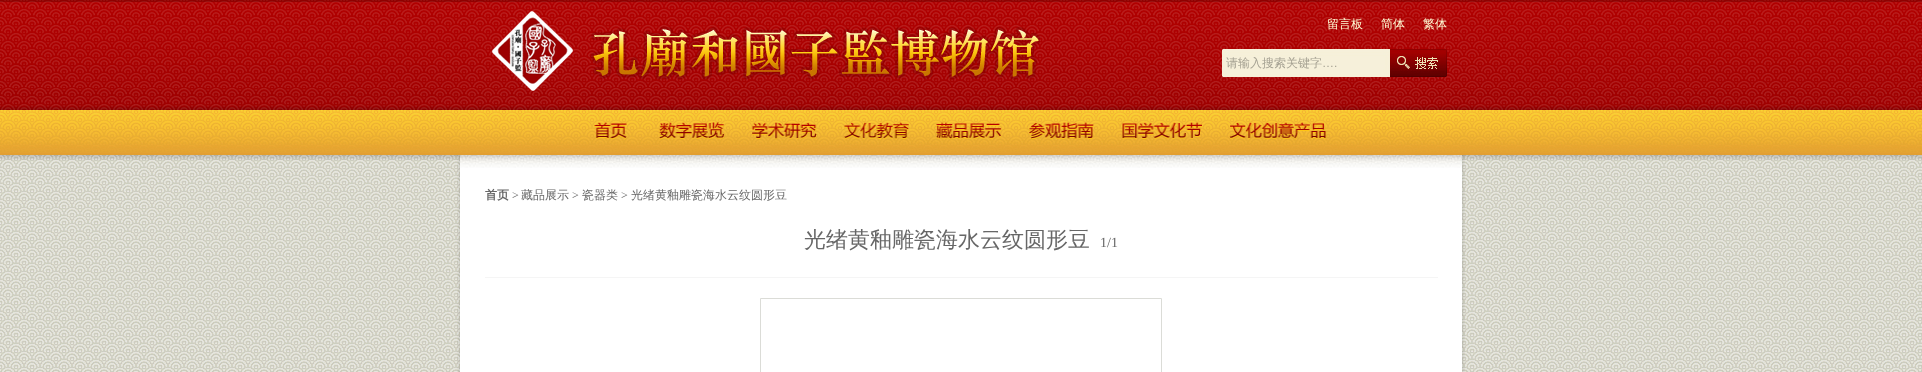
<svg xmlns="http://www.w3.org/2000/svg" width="1922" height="372">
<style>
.a{font:500 12px WenQuanYi Zen Hei;fill:#fffcd5}
.b{font:500 12px WenQuanYi Zen Hei;fill:#a5a192}
.c{font:12px Liberation Sans;fill:#a5a192}
.d{font:bold 12px WenQuanYi Zen Hei;fill:#676767}
.e{font:12px Liberation Serif;fill:#676767}
.f{font:500 12px WenQuanYi Zen Hei;fill:#676767}
.g{font:500 22px WenQuanYi Zen Hei;fill:#676767}
.h{font:14px Liberation Serif;fill:#676767}
</style>
<rect width="100%" height="100%" fill="#fff"/>
<image href="1.png" x="0" y="155" width="1922" height="217"/>
<image href="2.png" x="0" y="0" width="1922" height="155"/>
<image href="3.png" x="492" y="11" width="548" height="80"/>
<image href="4.png" x="1222" y="49" width="225" height="28"/>
<image href="5.png" x="594" y="122" width="33" height="17"/>
<image href="6.png" x="659" y="122" width="65" height="17"/>
<image href="7.png" x="752" y="122" width="65" height="18"/>
<image href="8.png" x="844" y="122" width="65" height="18"/>
<image href="9.png" x="936" y="122" width="65" height="18"/>
<image href="10.png" x="1029" y="122" width="65" height="18"/>
<image href="11.png" x="1122" y="122" width="80" height="17"/>
<image href="12.png" x="1229" y="122" width="97" height="17"/>
<image href="13.png" x="457" y="155" width="1008" height="217"/>
<image href="14.png" x="0" y="155" width="1922" height="5"/>
<image href="15.png" x="460" y="155" width="1002" height="13"/>
<path fill="#f5f5f5" d="M485 277h953v1H485z"/>
<path fill="none" stroke="#dbdcd7" d="M760.5 298.5h401v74H760.5z"/>
<text class="a" x="1327" y="28">留言板</text>
<text class="a" x="1381" y="28">简体</text>
<text class="a" x="1423" y="28">繁体</text>
<text class="b" x="1226" y="67">请输入搜索关键字</text>
<text class="c" x="1322" y="67">….</text>
<text class="d" x="485" y="199">首页</text>
<text class="e" x="512" y="199">&gt;</text>
<text class="f" x="521" y="199">藏品展示</text>
<text class="e" x="572" y="199">&gt;</text>
<text class="f" x="582" y="199">瓷器类</text>
<text class="e" x="621" y="199">&gt;</text>
<text class="f" x="631" y="199">光绪黄釉雕瓷海水云纹圆形豆</text>
<text class="g" x="804" y="247">光绪黄釉雕瓷海水云纹圆形豆</text>
<text class="h" x="1100" y="247">1/1</text>
</svg>
